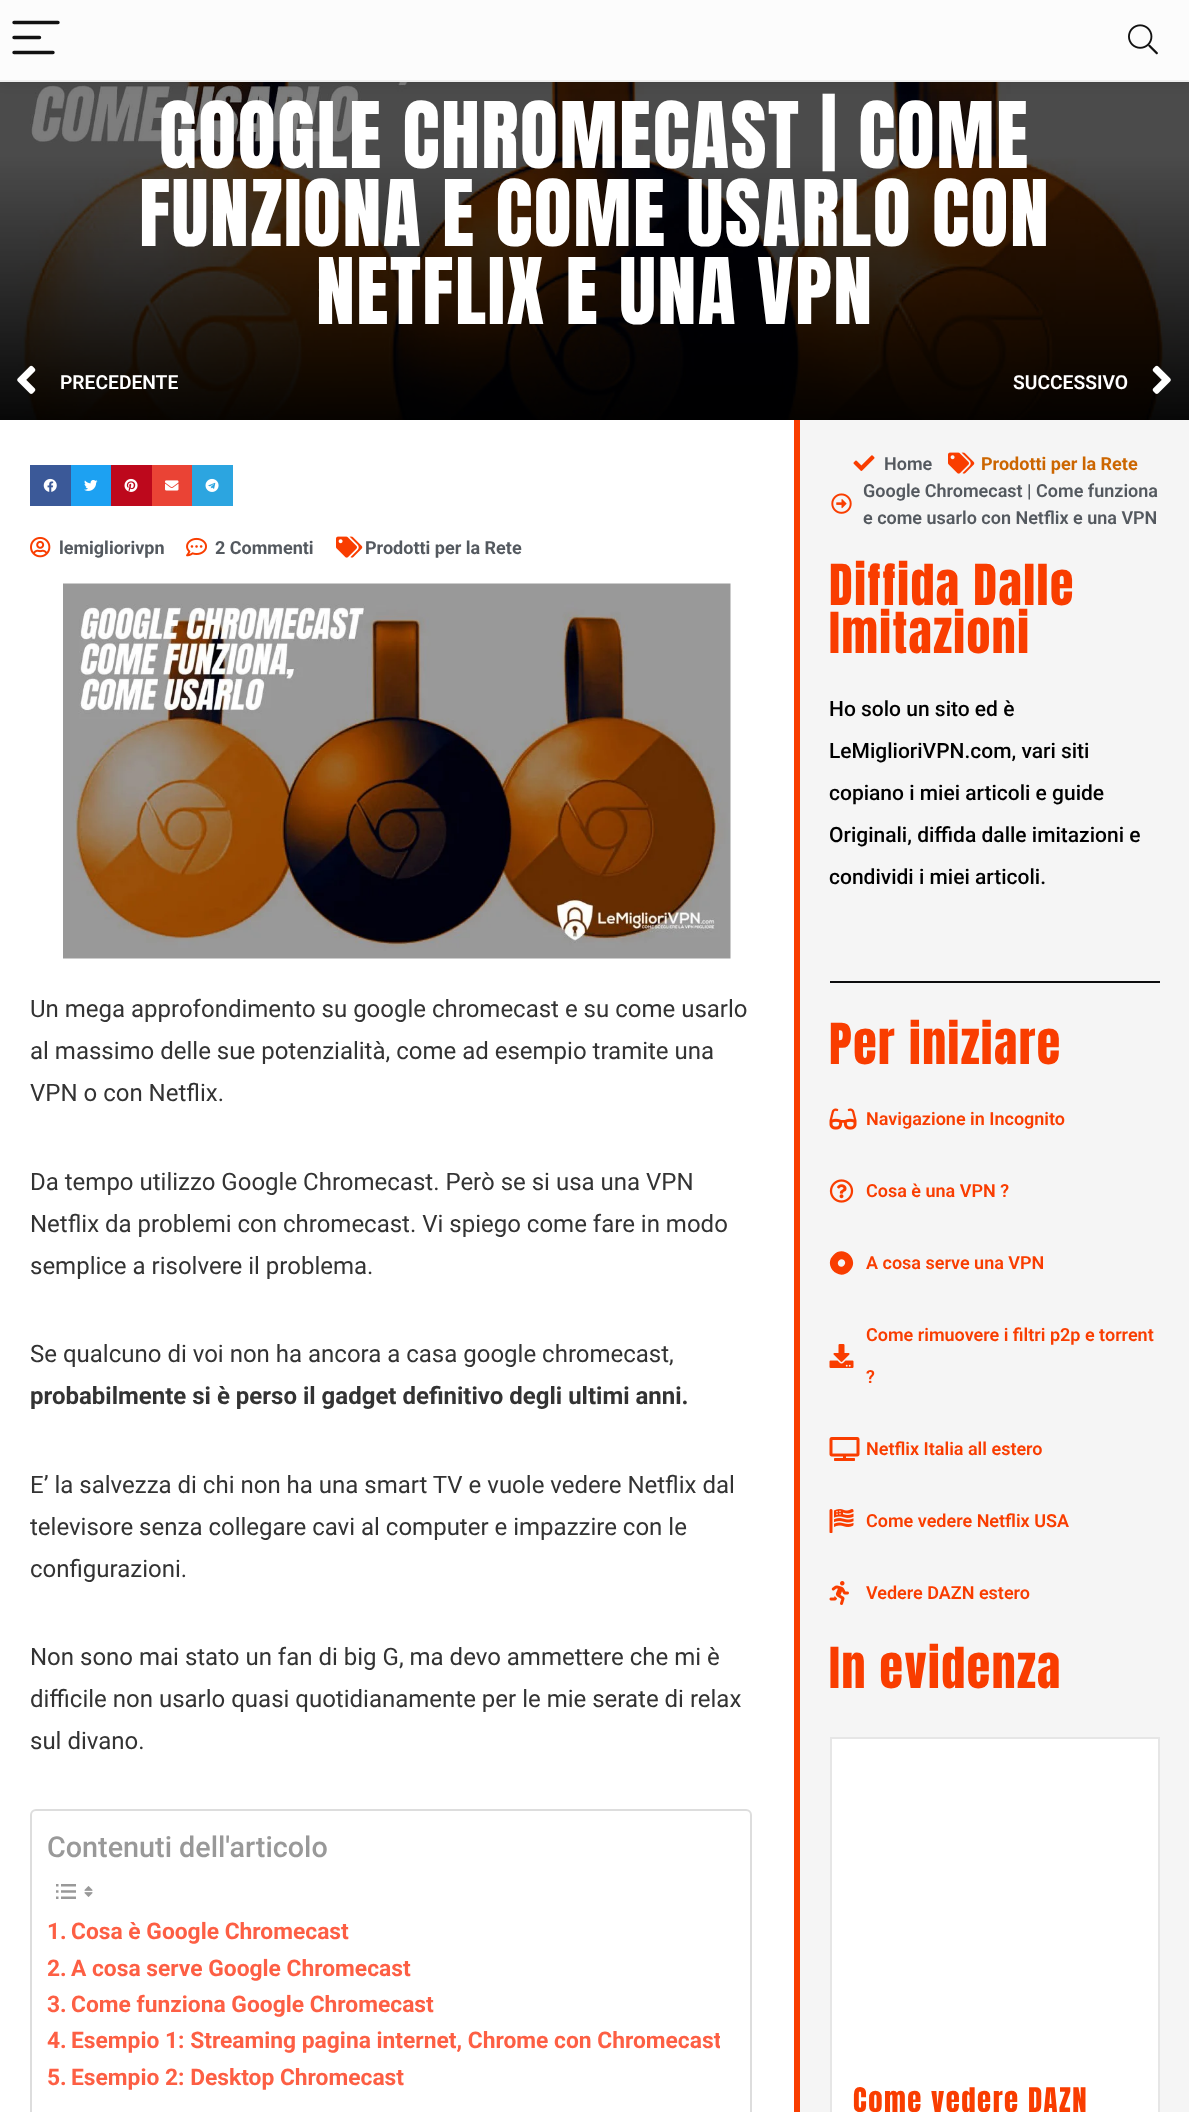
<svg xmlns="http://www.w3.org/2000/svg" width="1189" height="2112">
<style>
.a{font:78px Anton;letter-spacing:1.5px;fill:#fff}
.b{font:600 19.25px Roboto;fill:#fff}
.c{font:bold 18px Roboto;fill:#54595f}
.d{font:24px Roboto;fill:#333}
.e{font:bold 24px Roboto;fill:#333}
.f{font:500 28.75px Roboto;fill:#999}
.g{font:bold 22.8px Roboto;fill:#fd5f44}
.h{font:600 18px Roboto;fill:#54595f}
.i{font:bold 18px Roboto;fill:#c60}
.j{font:48px Anton;letter-spacing:1.5px;fill:#f93d00}
.k{font:500 21px Roboto;fill:#000}
.l{font:600 18px Roboto;fill:#f93d00}
.m{font:28.75px Anton;letter-spacing:1.5px;fill:#f93d00}
</style>
<defs>
<clipPath id="clip1"><path d="M47 2024h673v36H47z"/></clipPath>
</defs>
<rect width="100%" height="100%" fill="#f5f5f5"/>
<image href="2.png" x="0" y="82" width="1189" height="338"/>
<path fill="none" stroke="#00000008" stroke-width="2" d="M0 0h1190v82H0z"/>
<path fill="#0000001a" filter="blur(6px)" d="M0 2h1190v81H0z"/>
<path fill="#fcfcfc" d="M0 0h1189v80H0z"/>
<path fill="#eee" d="M0 80h1189v2H0z"/>
<path fill="none" stroke="#111" stroke-width="3.4" stroke-linecap="round" d="M14 22.5h44m-44 15h25.5m-25.5 15h39"/>
<image href="1.png" x="1128" y="24" width="30" height="31"/>
<image href="3.png" x="17" y="365" width="19" height="29"/>
<image href="4.png" x="1152" y="365" width="19" height="29"/>
<path fill="#fff" d="M0 420h794v1692H0z"/>
<path fill="#3b5998" d="M30 465h41v41H30z"/>
<image href="5.png" x="43" y="478" width="14" height="14"/>
<path fill="#1da1f2" d="M71 465h40v41H71z"/>
<image href="6.png" x="84" y="480" width="14" height="11"/>
<path fill="#bd081c" d="M111 465h41v41H111z"/>
<image href="7.png" x="124" y="478" width="14" height="14"/>
<path fill="#ea4335" d="M152 465h40v41H152z"/>
<image href="8.png" x="165" y="480" width="14" height="11"/>
<path fill="#2ca5e0" d="M192 465h41v41H192z"/>
<image href="9.png" x="205" y="478" width="14" height="14"/>
<image href="10.png" x="30" y="537" width="21" height="21"/>
<image href="11.png" x="186" y="537" width="21" height="20"/>
<image href="12.png" x="336" y="536" width="27" height="22"/>
<image href="13.png" x="63" y="583" width="668" height="376"/>
<rect fill="none" stroke="#ddd" stroke-width="2" x="31" y="1810" width="720" height="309" rx="5"/>
<image href="14.png" x="56" y="1884" width="20" height="15"/>
<image href="15.png" x="84" y="1886" width="9" height="11"/>
<path fill="#f93d00" d="M794 420h6v1692H794z"/>
<image href="16.png" x="853" y="455" width="22" height="16"/>
<image href="17.png" x="948" y="452" width="27" height="22"/>
<image href="18.png" x="831" y="493" width="21" height="21"/>
<path fill="#0c0d0e" d="M830 981h330v2H830z"/>
<image href="19.png" x="829" y="1108" width="28" height="22"/>
<image href="20.png" x="829" y="1179" width="25" height="24"/>
<path fill="#f93d00" d="M833.5 1255c10.5-11 27 5.5 16 16c-10.5 11-27-5.5-16-16zm10.5 10.5c3.5-3.5-1.5-8.5-5-5c-3.5 3.5 1.5 8.5 5 5z"/>
<image href="21.png" x="829" y="1344" width="25" height="24"/>
<image href="22.png" x="829" y="1437" width="31" height="24"/>
<image href="23.png" x="829" y="1509" width="25" height="24"/>
<image href="24.png" x="829" y="1581" width="20" height="24"/>
<path fill="#fff" stroke="#e6e6e6" stroke-width="2" d="M831 1738h328v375H831z"/>
<text class="a" x="159" y="168">GOOGLE CHROMECAST | COME</text>
<text class="a" x="139" y="246">FUNZIONA E COME USARLO CON</text>
<text class="a" x="316" y="324">NETFLIX E UNA VPN</text>
<text class="b" x="60" y="389">PRECEDENTE</text>
<text class="b" x="1013" y="389">SUCCESSIVO</text>
<text class="c" x="59" y="554">lemigliorivpn</text>
<text class="c" x="215" y="554">2 Commenti</text>
<text class="c" x="365" y="554">Prodotti per la Rete</text>
<text class="d" x="30" y="1017">Un mega approfondimento su google chromecast e su come usarlo</text>
<text class="d" x="30" y="1059">al massimo delle sue potenzialità, come ad esempio tramite una</text>
<text class="d" x="30" y="1101">VPN o con Netflix.</text>
<text class="d" x="30" y="1190">Da tempo utilizzo Google Chromecast. Però se si usa una VPN</text>
<text class="d" x="30" y="1232">Netflix da problemi con chromecast. Vi spiego come fare in modo</text>
<text class="d" x="30" y="1274">semplice a risolvere il problema.</text>
<text class="d" x="30" y="1362">Se qualcuno di voi non ha ancora a casa google chromecast,</text>
<text class="e" x="30" y="1404">probabilmente si è perso il gadget definitivo degli ultimi anni.</text>
<text class="d" x="30" y="1493">E’ la salvezza di chi non ha una smart TV e vuole vedere Netflix dal</text>
<text class="d" x="30" y="1535">televisore senza collegare cavi al computer e impazzire con le</text>
<text class="d" x="30" y="1577">configurazioni.</text>
<text class="d" x="30" y="1665">Non sono mai stato un fan di big G, ma devo ammettere che mi è</text>
<text class="d" x="30" y="1707">difficile non usarlo quasi quotidianamente per le mie serate di relax</text>
<text class="d" x="30" y="1749">sul divano.</text>
<text class="f" x="47" y="1857">Contenuti dell'articolo</text>
<text class="g" x="47" y="1939">1.</text>
<text class="g" x="71" y="1939">Cosa è Google Chromecast</text>
<text class="g" x="47" y="1976">2.</text>
<text class="g" x="71" y="1976">A cosa serve Google Chromecast</text>
<text class="g" x="47" y="2012">3.</text>
<text class="g" x="71" y="2012">Come funziona Google Chromecast</text>
<text class="g" x="47" y="2048">4.</text>
<g clip-path="url(#clip1)">
<text class="g" x="71" y="2048">Esempio 1: Streaming pagina internet, Chrome con Chromecast</text>
</g>
<text class="g" x="47" y="2085">5.</text>
<text class="g" x="71" y="2085">Esempio 2: Desktop Chromecast</text>
<text class="h" x="884" y="470">Home</text>
<text class="i" x="981" y="470">Prodotti per la Rete</text>
<text class="h" x="863" y="497">Google Chromecast | Come funziona</text>
<text class="h" x="863" y="524">e come usarlo con Netflix e una VPN</text>
<text class="j" x="829" y="605">Diffida Dalle</text>
<text class="j" x="829" y="653">Imitazioni</text>
<text class="k" x="829" y="716">Ho solo un sito ed è</text>
<text class="k" x="829" y="758">LeMiglioriVPN.com, vari siti</text>
<text class="k" x="829" y="800">copiano i miei articoli e guide</text>
<text class="k" x="829" y="842">Originali, diffida dalle imitazioni e</text>
<text class="k" x="829" y="884">condividi i miei articoli.</text>
<text class="j" x="829" y="1064">Per iniziare</text>
<text class="l" x="866" y="1125">Navigazione in Incognito</text>
<text class="l" x="866" y="1197">Cosa è una VPN ?</text>
<text class="l" x="866" y="1269">A cosa serve una VPN</text>
<text class="l" x="866" y="1341">Come rimuovere i filtri p2p e torrent</text>
<text class="l" x="866" y="1383">?</text>
<text class="l" x="866" y="1455">Netflix Italia all estero</text>
<text class="l" x="866" y="1527">Come vedere Netflix USA</text>
<text class="l" x="866" y="1599">Vedere DAZN estero</text>
<text class="j" x="829" y="1688">In evidenza</text>
<text class="m" x="853" y="2112">Come vedere DAZN</text>
</svg>
